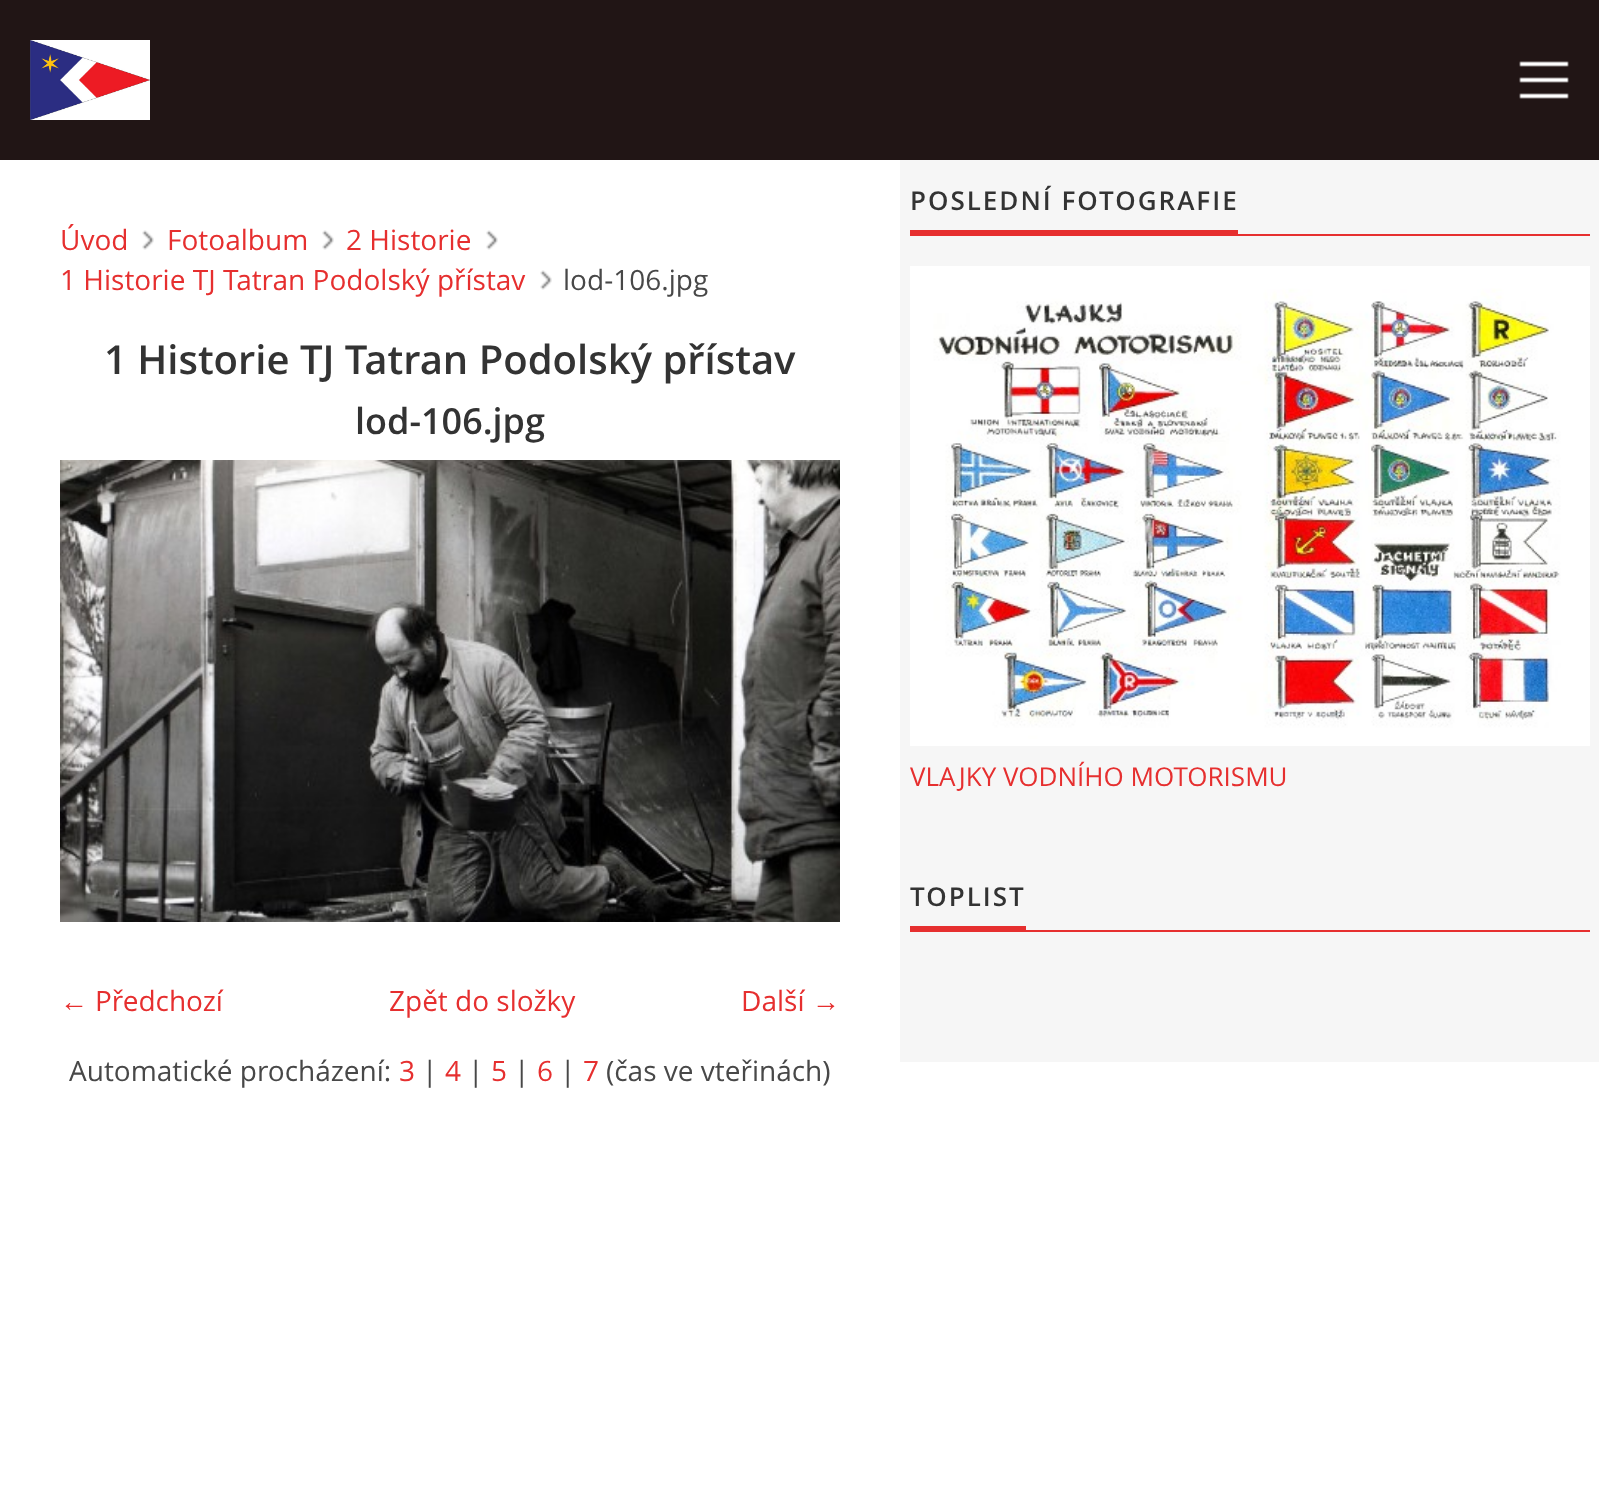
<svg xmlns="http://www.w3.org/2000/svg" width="1599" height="1499">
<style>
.a{font:28px Open Sans;fill:#e62f2f}
.b{font:28px Open Sans;fill:#484848}
.c{font:600 40px Open Sans;fill:#333}
.d{font:600 36px Open Sans;fill:#333}
.e{font:28px Liberation Serif;fill:#e62f2f}
.f{font:600 26px Open Sans;letter-spacing:2px;fill:#333}
.g{font:26px Open Sans;fill:#e62f2f}
</style>
<rect width="100%" height="100%" fill="#fff"/>
<path fill="#211515" d="M0 0h1599v160H0z"/>
<image href="1.png" x="30" y="40" width="120" height="80"/>
<image href="2.png" x="1519" y="61" width="50" height="38"/>
<image href="3.png" x="142" y="230" width="12" height="20"/>
<image href="3.png" x="322" y="230" width="12" height="20"/>
<image href="3.png" x="486" y="230" width="12" height="20"/>
<image href="3.png" x="540" y="270" width="12" height="20"/>
<image href="4.png" x="60" y="460" width="780" height="462"/>
<path fill="#f6f6f6" d="M900 160h699v902H900z"/>
<path fill="#e62f2f" d="M910 230h328v4H910z"/>
<path fill="#e62f2f" d="M910 234h680v2H910z"/>
<image href="5.png" x="910" y="266" width="680" height="480"/>
<path fill="#e62f2f" d="M910 926h116v4H910z"/>
<path fill="#e62f2f" d="M910 930h680v2H910z"/>
<text class="a" x="60" y="250">Úvod</text>
<text class="a" x="167" y="250">Fotoalbum</text>
<text class="a" x="346" y="250">2 Historie</text>
<text class="a" x="60" y="290">1 Historie TJ Tatran Podolský přístav</text>
<text class="b" x="563" y="290">lod-106.jpg</text>
<text class="c" x="104" y="374">1 Historie TJ Tatran Podolský přístav</text>
<text class="d" x="355" y="434">lod-106.jpg</text>
<text class="e" x="60" y="1011">←</text>
<text class="a" x="95" y="1011">Předchozí</text>
<text class="a" x="389" y="1011">Zpět do složky</text>
<text class="a" x="741" y="1011">Další</text>
<text class="e" x="812" y="1011">→</text>
<text class="b" x="69" y="1081">Automatické procházení:</text>
<text class="a" x="399" y="1081">3</text>
<text class="b" x="422" y="1081">|</text>
<text class="a" x="445" y="1081">4</text>
<text class="b" x="468" y="1081">|</text>
<text class="a" x="491" y="1081">5</text>
<text class="b" x="514" y="1081">|</text>
<text class="a" x="537" y="1081">6</text>
<text class="b" x="560" y="1081">|</text>
<text class="a" x="583" y="1081">7</text>
<text class="b" x="606" y="1081">(čas ve vteřinách)</text>
<text class="f" x="910" y="210">POSLEDNÍ FOTOGRAFIE</text>
<text class="g" x="910" y="786">VLAJKY VODNÍHO MOTORISMU</text>
<text class="f" x="910" y="906">TOPLIST</text>
</svg>
